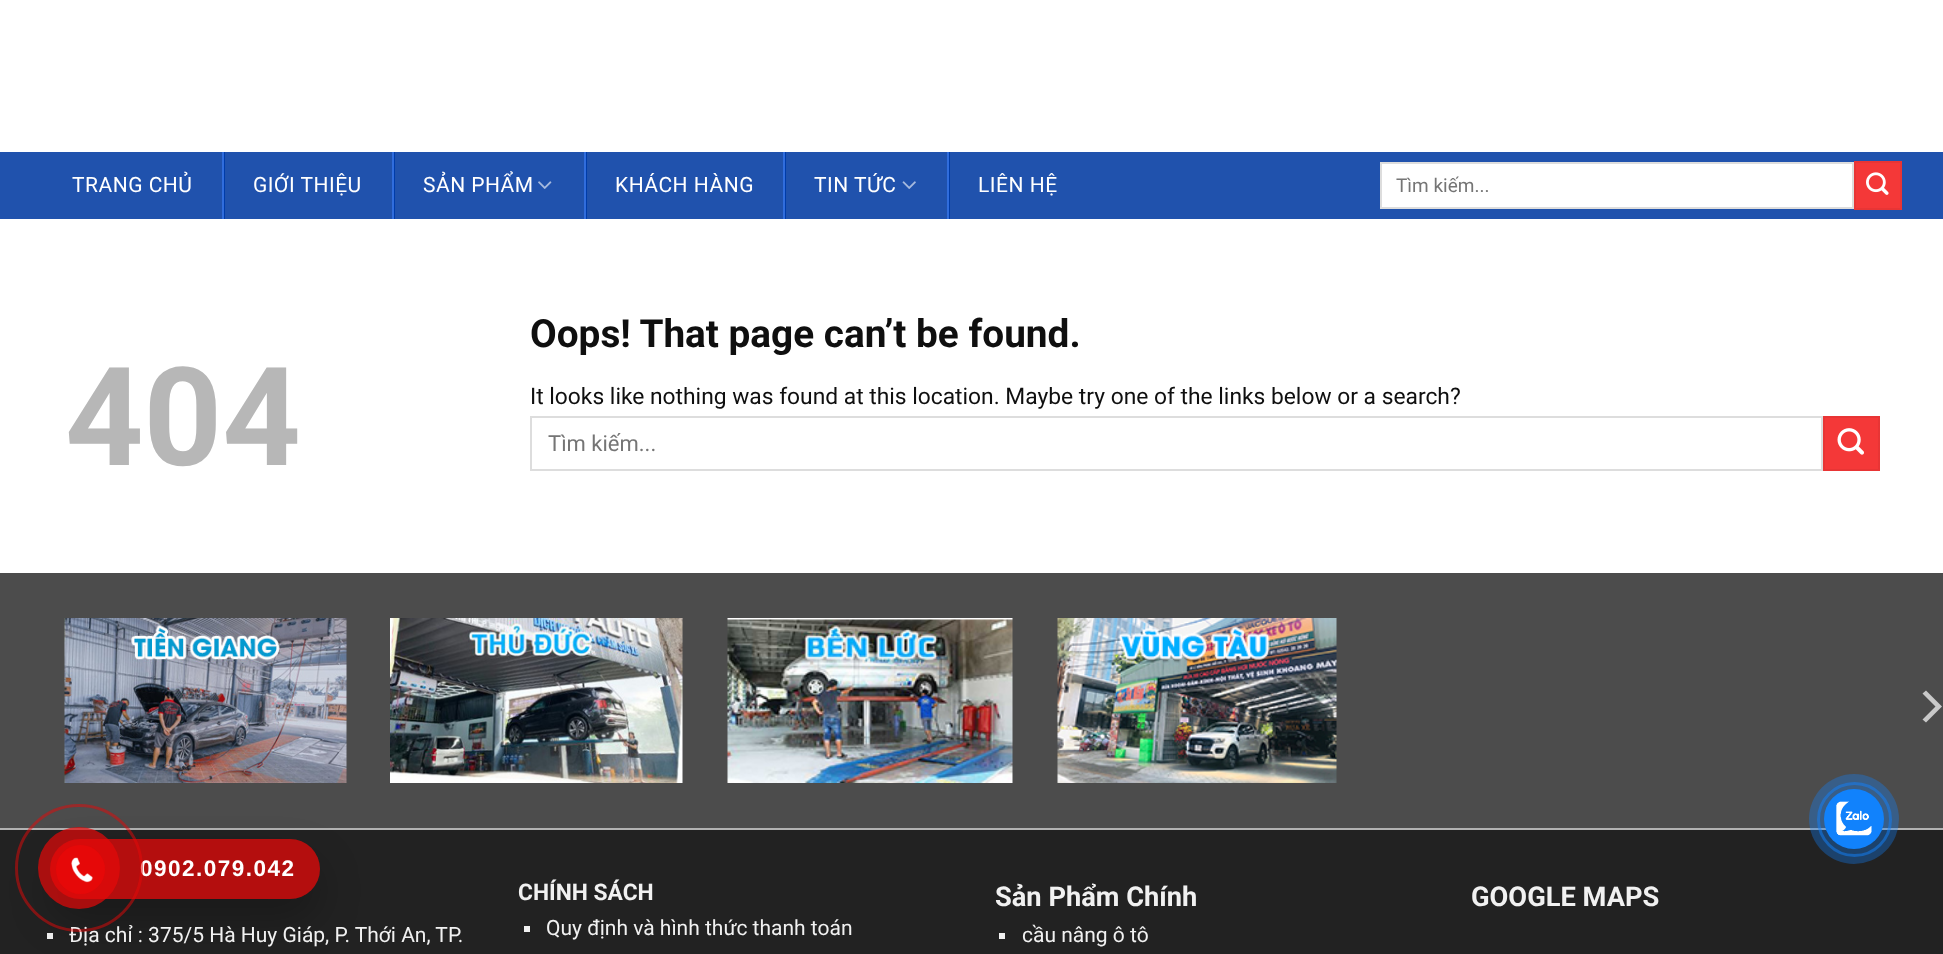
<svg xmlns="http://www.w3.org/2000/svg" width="1943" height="954">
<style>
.a{font:21px Roboto;letter-spacing:0.5px;fill:#fff}
.b{font:19px Roboto;fill:#757575}
.c{font:bold 137px Roboto;fill:#b7b7b7}
.d{font:bold 38.75px Roboto;fill:#0f0f0f}
.e{font:22.8px Roboto;fill:#0f0f0f}
.f{font:22px Roboto;fill:#757575}
.g{font:bold 22.5px Liberation Sans;letter-spacing:1.5px;fill:#fff}
.h{font:bold 22.8px Roboto;fill:#f1f1f1}
.i{font:21px Roboto;fill:#f1f1f1}
.j{font:bold 27.25px Roboto;fill:#f1f1f1}
</style>
<defs>
<clipPath id="clip1"><path d="M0 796h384v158h-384zm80 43h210c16.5 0 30 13.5 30 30c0 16.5-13.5 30-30 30h-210c-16.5 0-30-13.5-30-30c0-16.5 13.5-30 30-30z" clip-rule="evenodd"/></clipPath>
</defs>
<rect width="100%" height="100%" fill="#fff"/>
<path fill="#2052ad" d="M0 152h1943v67H0z"/>
<path fill="#003ca9" d="M224 152h1v67H224z"/>
<path fill="#306ddd" d="M222 152h2v67H222z"/>
<path fill="#003ca9" d="M394 152h1v67H394z"/>
<path fill="#306ddd" d="M392 152h2v67H392z"/>
<path fill="#003ca9" d="M586 152h1v67H586z"/>
<path fill="#306ddd" d="M584 152h2v67H584z"/>
<image href="1.png" x="538" y="181" width="14" height="8"/>
<path fill="#003ca9" d="M785 152h1v67H785z"/>
<path fill="#306ddd" d="M783 152h2v67H783z"/>
<path fill="#003ca9" d="M949 152h1v67H949z"/>
<path fill="#306ddd" d="M947 152h2v67H947z"/>
<image href="2.png" x="902" y="181" width="14" height="8"/>
<path fill="#fff" stroke="#ddd" stroke-width="2" d="M1381 163h472v45H1381z"/>
<path fill="#f43838" stroke="#e83535" stroke-width="2" d="M1855 162h46v47H1855z"/>
<image href="3.png" x="1866" y="172" width="23" height="23"/>
<path fill="none" stroke="#ddd" stroke-width="2" d="M531 417h1291v53H531z"/>
<path fill="#f43838" stroke="#e83535" stroke-width="2" d="M1824 417h55v53H1824z"/>
<image href="4.png" x="1837" y="428" width="27" height="27"/>
<path fill="#4c4c4c" d="M0 573h1943v255H0z"/>
<path fill="#222" d="M0 830h1943v124H0z"/>
<path fill="#b1b1b1" d="M0 828h1943v2H0z"/>
<path fill="#f1f1f1" d="M47 933h6v6H47z"/>
<g clip-path="url(#clip1)">
<rect fill="#00000040" filter="blur(21px)" x="50" y="860" width="270" height="60" rx="30"/>
</g>
<rect fill="#e60808bf" x="50" y="839" width="270" height="60" rx="30"/>
<image href="6.png" x="64" y="618" width="283" height="165"/>
<image href="7.png" x="390" y="618" width="293" height="165"/>
<image href="8.png" x="727" y="618" width="286" height="165"/>
<image href="9.png" x="1057" y="618" width="280" height="165"/>
<path fill="#c9c9c9" d="M1942 706.5l-16-16l-3.5 3l13 13l-13 13l3.5 3z"/>
<path fill="#f1f1f1" d="M524 926h6v6H524z"/>
<path fill="#f1f1f1" d="M999 933h6v6H999z"/>
<circle fill="none" stroke="#1182fc80" stroke-width="3" cx="1854.5" cy="819.5" r="36"/>
<circle fill="#1182fc57" cx="1854" cy="819" r="45"/>
<circle fill="#1182fc" cx="1854" cy="819" r="30"/>
<image href="10.png" x="1836" y="801" width="36" height="35"/>
<text class="a" x="72" y="192">TRANG CHỦ</text>
<text class="a" x="253" y="192">GIỚI THIỆU</text>
<text class="a" x="423" y="192">SẢN PHẨM</text>
<text class="a" x="615" y="192">KHÁCH HÀNG</text>
<text class="a" x="814" y="192">TIN TỨC</text>
<text class="a" x="978" y="192">LIÊN HỆ</text>
<text class="b" x="1396" y="192">Tìm kiếm...</text>
<text class="c" x="65" y="465">404</text>
<text class="d" x="530" y="347">Oops! That page can’t be found.</text>
<text class="e" x="530" y="404">It looks like nothing was found at this location. Maybe try one of the links below or a search?</text>
<text class="f" x="548" y="451">Tìm kiếm...</text>
<text class="g" x="140" y="876">0902.079.042</text>
<text class="h" x="518" y="900">CHÍNH SÁCH</text>
<text class="i" x="546" y="935">Quy định và hình thức thanh toán</text>
<text class="j" x="995" y="906">Sản Phẩm Chính</text>
<text class="i" x="1022" y="942">cầu nâng ô tô</text>
<text class="j" x="1471" y="906">GOOGLE MAPS</text>
<text class="i" x="69" y="942">Địa chỉ : 375/5 Hà Huy Giáp, P. Thới An, TP.</text>
<circle fill="none" stroke="#e6080880" stroke-width="3" cx="79" cy="868" r="62.5"/>
<circle fill="#e60808b3" cx="79" cy="868" r="41"/>
<circle fill="#e60808" cx="80.5" cy="869.5" r="24.5"/>
<image href="5.png" x="71" y="857" width="22" height="26"/>
</svg>
